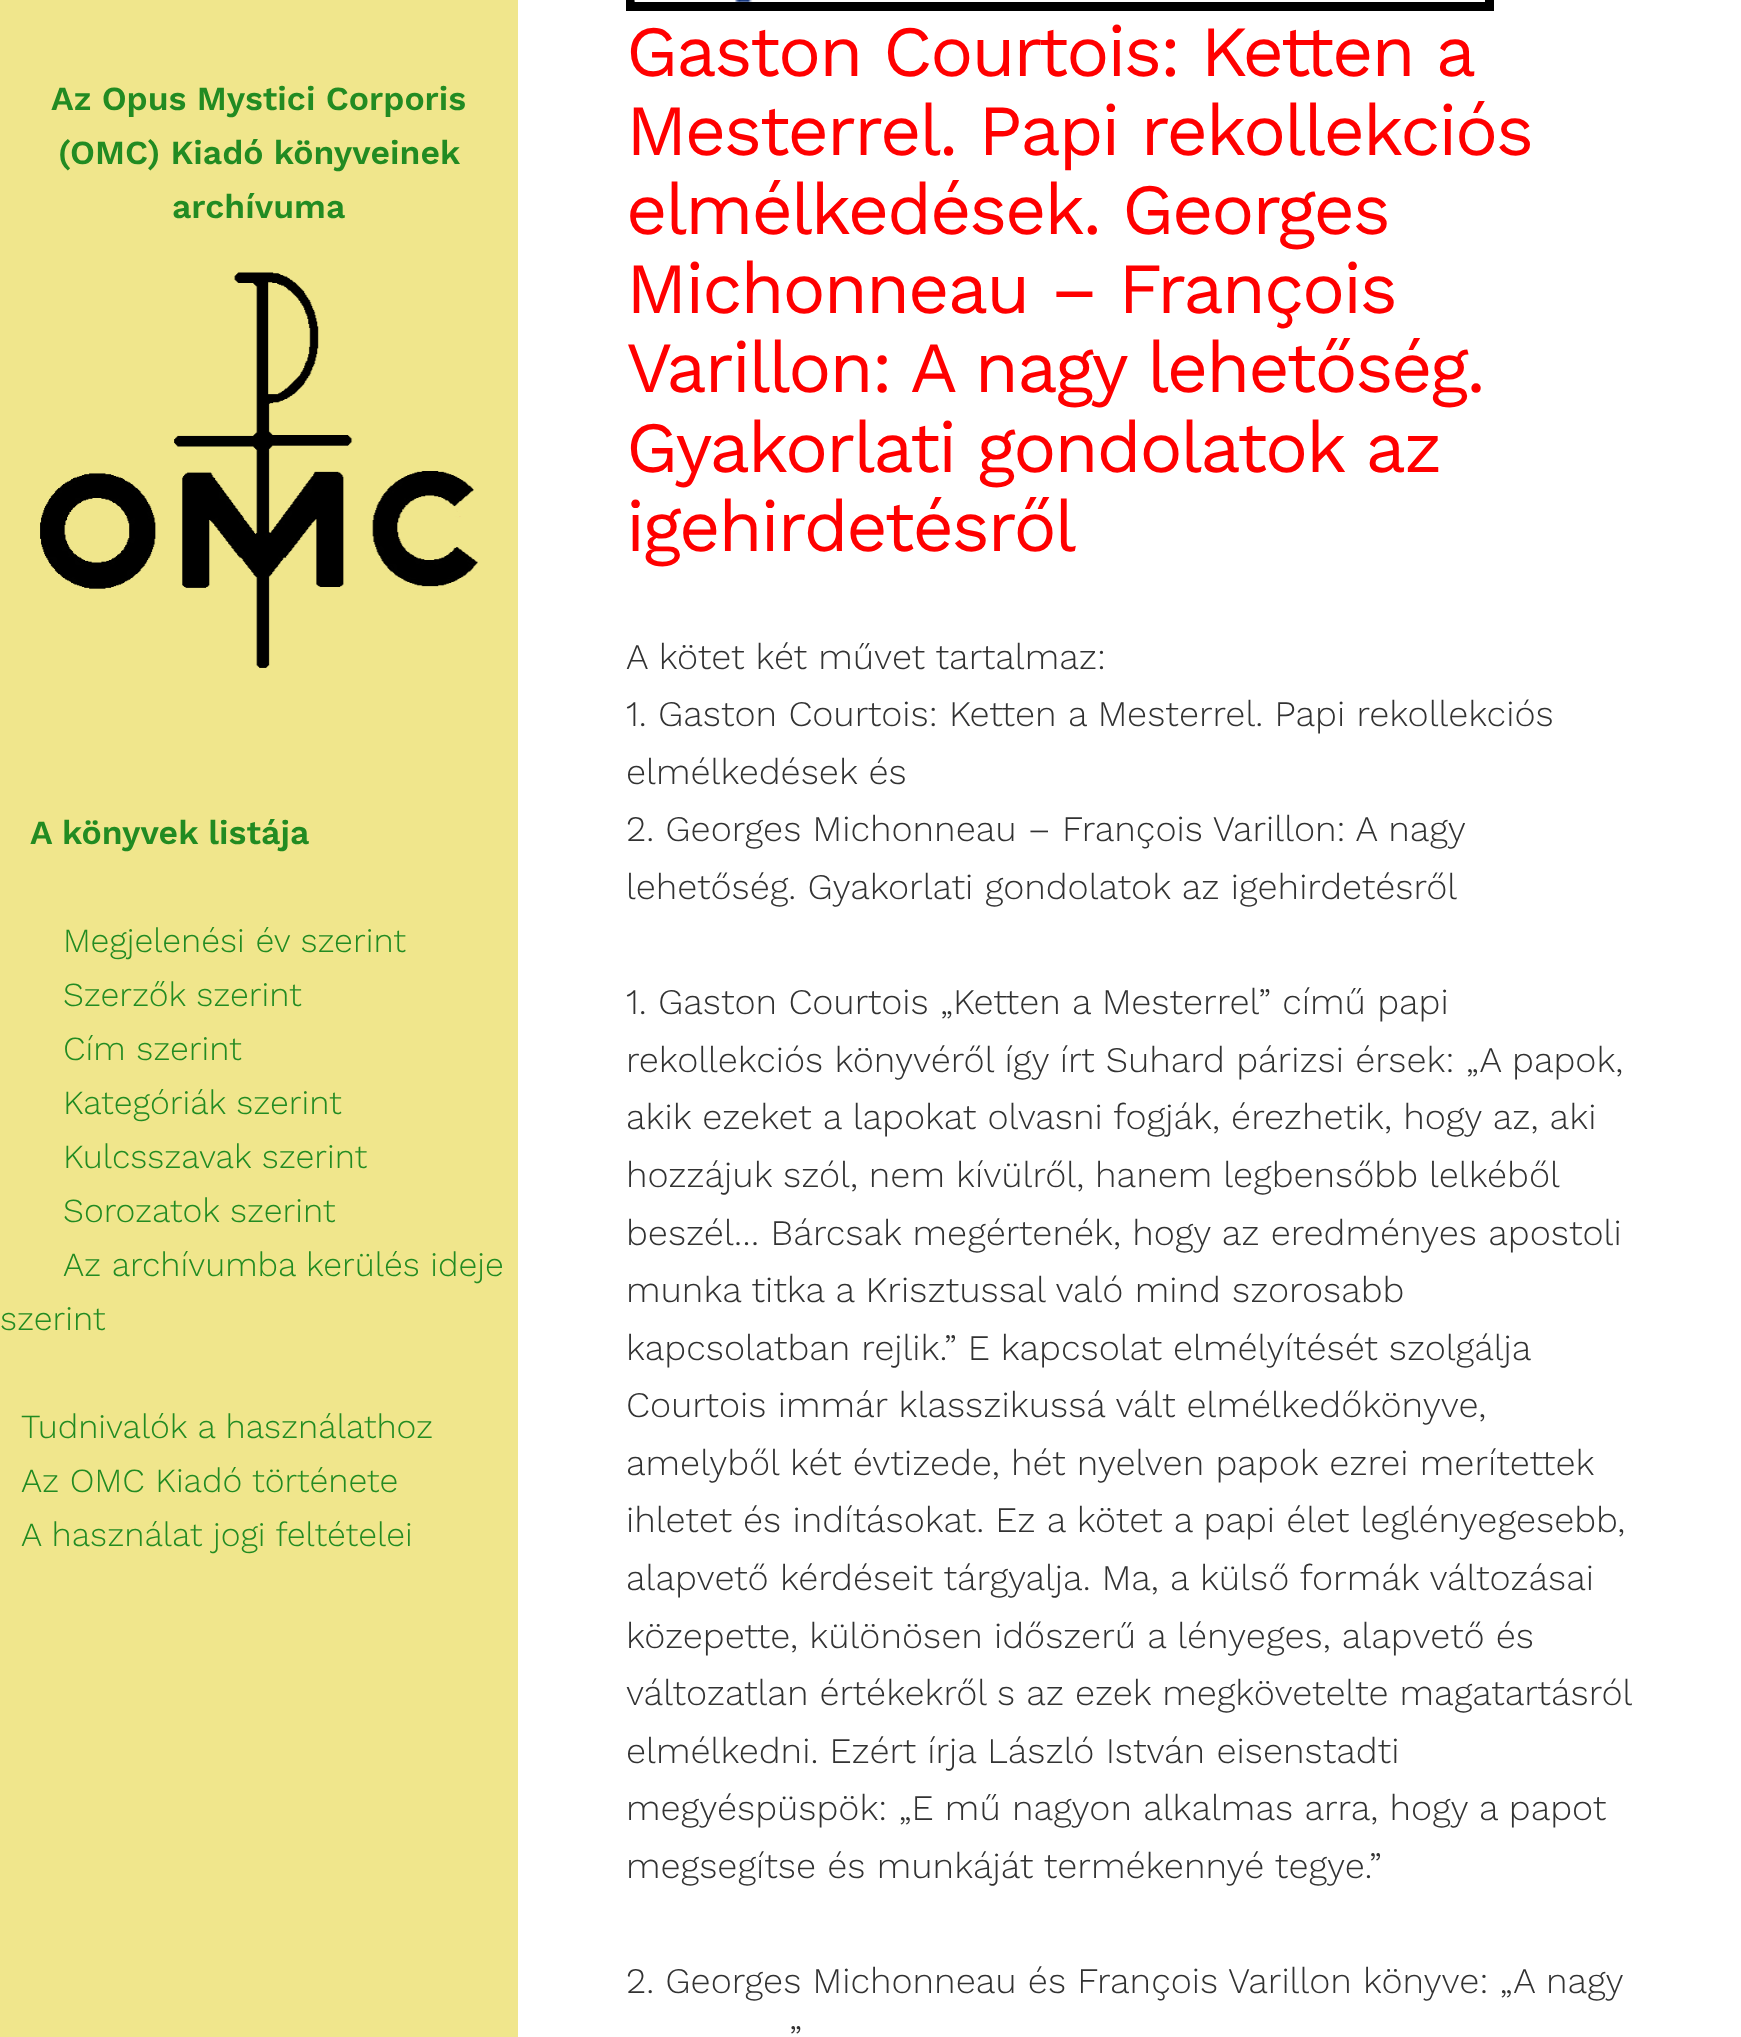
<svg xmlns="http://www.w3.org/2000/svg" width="1741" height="2037">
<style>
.a{font:600 33.75px Work Sans;fill:#228b22}
.b{font:300 33.75px Work Sans;fill:#228b22}
.c{font:72px Work Sans;letter-spacing:-2.25px;fill:#f00}
.d{font:300 36px Work Sans;fill:#323232}
</style>
<rect width="100%" height="100%" fill="#fff"/>
<path fill="#f0e68c" d="M0 0h518v2037H0z"/>
<image href="1.png" x="40" y="272" width="438" height="396"/>
<path fill="none" stroke="#000" stroke-width="9" d="M630.5 -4.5h859v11H630.5z"/>
<image href="2.png" x="634" y="0" width="119" height="2"/>
<text class="a" x="51" y="110">Az Opus Mystici Corporis</text>
<text class="a" x="58" y="164">(OMC) Kiadó könyveinek</text>
<text class="a" x="172" y="218">archívuma</text>
<text class="a" x="30" y="844">A könyvek listája</text>
<text class="b" x="63" y="952">Megjelenési év szerint</text>
<text class="b" x="63" y="1006">Szerzők szerint</text>
<text class="b" x="63" y="1060">Cím szerint</text>
<text class="b" x="63" y="1114">Kategóriák szerint</text>
<text class="b" x="63" y="1168">Kulcsszavak szerint</text>
<text class="b" x="63" y="1222">Sorozatok szerint</text>
<text class="b" x="63" y="1276">Az archívumba kerülés ideje</text>
<text class="b" x="0" y="1330">szerint</text>
<text class="b" x="21" y="1438">Tudnivalók a használathoz</text>
<text class="b" x="21" y="1492">Az OMC Kiadó története</text>
<text class="b" x="21" y="1546">A használat jogi feltételei</text>
<text class="c" x="626" y="76" word-spacing="-0.5">Gaston Courtois: Ketten a</text>
<text class="c" x="626" y="155">Mesterrel. Papi rekollekciós</text>
<text class="c" x="626" y="234">elmélkedések. Georges</text>
<text class="c" x="626" y="313">Michonneau – François</text>
<text class="c" x="626" y="392">Varillon: A nagy lehetőség.</text>
<text class="c" x="626" y="472">Gyakorlati gondolatok az</text>
<text class="c" x="626" y="551">igehirdetésről</text>
<text class="d" x="626" y="669">A kötet két művet tartalmaz:</text>
<text class="d" x="626" y="726">1. Gaston Courtois: Ketten a Mesterrel. Papi rekollekciós</text>
<text class="d" x="626" y="784">elmélkedések és</text>
<text class="d" x="626" y="841">2. Georges Michonneau – François Varillon: A nagy</text>
<text class="d" x="626" y="899">lehetőség. Gyakorlati gondolatok az igehirdetésről</text>
<text class="d" x="626" y="1014">1. Gaston Courtois „Ketten a Mesterrel” című papi</text>
<text class="d" x="626" y="1072">rekollekciós könyvéről így írt Suhard párizsi érsek: „A papok,</text>
<text class="d" x="626" y="1129">akik ezeket a lapokat olvasni fogják, érezhetik, hogy az, aki</text>
<text class="d" x="626" y="1187" word-spacing="-0.25">hozzájuk szól, nem kívülről, hanem legbensőbb lelkéből</text>
<text class="d" x="626" y="1245">beszél… Bárcsak megértenék, hogy az eredményes apostoli</text>
<text class="d" x="626" y="1302">munka titka a Krisztussal való mind szorosabb</text>
<text class="d" x="626" y="1360" word-spacing="-0.25">kapcsolatban rejlik.” E kapcsolat elmélyítését szolgálja</text>
<text class="d" x="626" y="1417">Courtois immár klasszikussá vált elmélkedőkönyve,</text>
<text class="d" x="626" y="1475">amelyből két évtizede, hét nyelven papok ezrei merítettek</text>
<text class="d" x="626" y="1532">ihletet és indításokat. Ez a kötet a papi élet leglényegesebb,</text>
<text class="d" x="626" y="1590">alapvető kérdéseit tárgyalja. Ma, a külső formák változásai</text>
<text class="d" x="626" y="1648">közepette, különösen időszerű a lényeges, alapvető és</text>
<text class="d" x="626" y="1705" word-spacing="-0.25">változatlan értékekről s az ezek megkövetelte magatartásról</text>
<text class="d" x="626" y="1763">elmélkedni. Ezért írja László István eisenstadti</text>
<text class="d" x="626" y="1820">megyéspüspök: „E mű nagyon alkalmas arra, hogy a papot</text>
<text class="d" x="626" y="1878">megsegítse és munkáját termékennyé tegye.”</text>
<text class="d" x="626" y="1993">2. Georges Michonneau és François Varillon könyve: „A nagy</text>
<text class="d" x="789" y="2051">”</text>
</svg>
